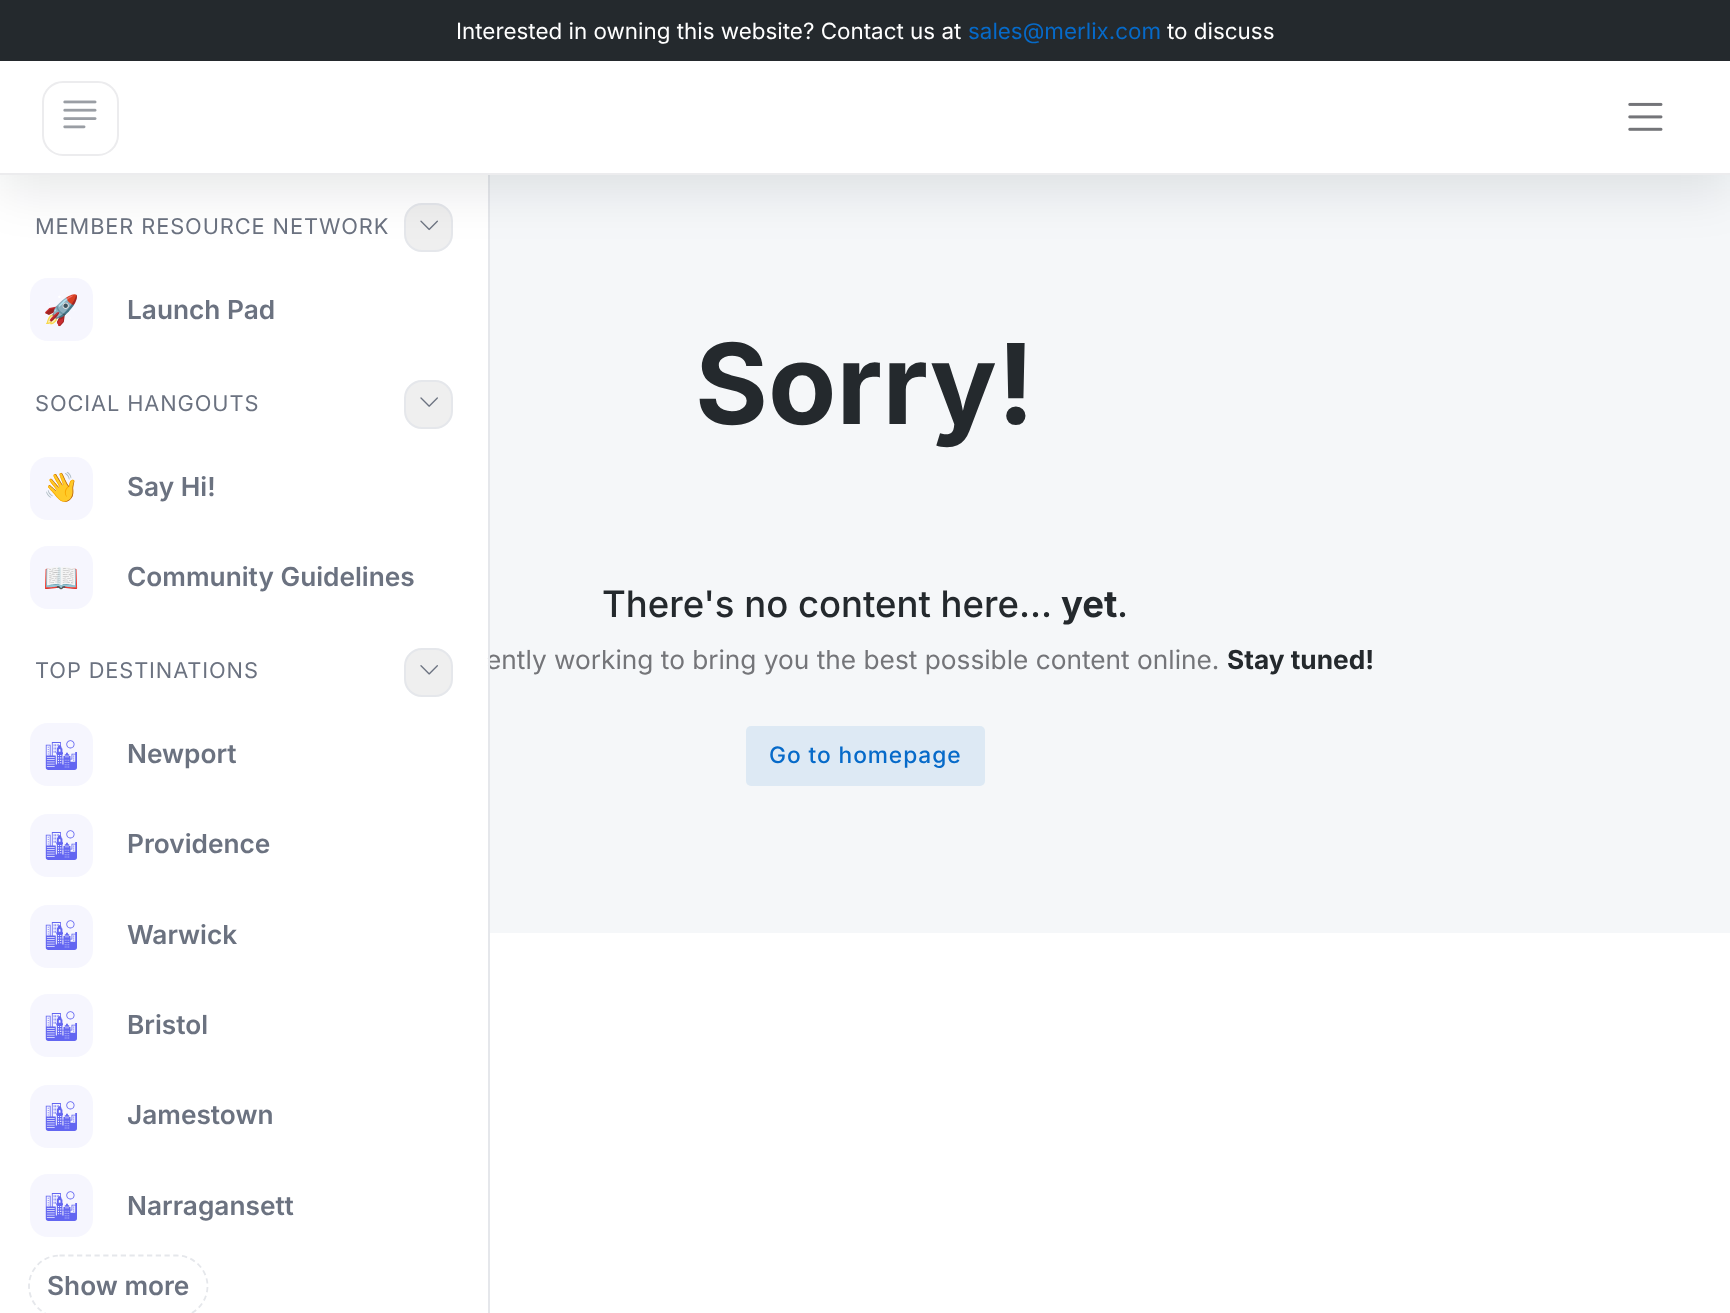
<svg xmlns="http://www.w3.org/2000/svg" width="1730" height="1313">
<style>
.a{font:21.8px Inter;letter-spacing:0.9px;fill:#6b7280}
.b{font:bold 29px Noto Color Emoji;fill:#6366f1}
.c{font:600 26.25px Inter;fill:#6b7280}
.d{font:600 29px Noto Emoji;fill:#6366f1}
.e{font:bold 111.5px Inter;fill:#24292d}
.f{font:500 36.5px Inter;fill:#24292d}
.g{font:bold 36.5px Inter;fill:#24292d}
.h{font:26.25px Inter;fill:#747579}
.i{font:22.4px Inter;fill:#fff}
.j{font:22.4px Inter;fill:#066ac9}
.k{font:bold 26.25px Inter;fill:#24292d}
.l{font:500 22.75px Inter;letter-spacing:0.9px;fill:#066ac9}
</style>
<rect width="100%" height="100%" fill="#fff"/>
<path fill="#f5f7f9" d="M490 175h1240v758H490z"/>
<rect fill="#efefef" stroke="#e5e7eb" stroke-width="2" x="405" y="204" width="47" height="47" rx="17"/>
<image href="3.png" x="420" y="220" width="18" height="11"/>
<rect fill="#f6f6fe" x="30" y="278" width="63" height="63" rx="18"/>
<rect fill="#efefef" stroke="#e5e7eb" stroke-width="2" x="405" y="381" width="47" height="47" rx="17"/>
<image href="4.png" x="420" y="397" width="18" height="10"/>
<rect fill="#f6f6fe" x="30" y="457" width="63" height="63" rx="18"/>
<rect fill="#f6f6fe" x="30" y="546" width="63" height="63" rx="18"/>
<rect fill="#efefef" stroke="#e5e7eb" stroke-width="2" x="405" y="649" width="47" height="47" rx="17"/>
<image href="5.png" x="420" y="665" width="18" height="10"/>
<rect fill="#f6f6fe" x="30" y="723" width="63" height="63" rx="18"/>
<rect fill="#f6f6fe" x="30" y="814" width="63" height="63" rx="18"/>
<rect fill="#f6f6fe" x="30" y="905" width="63" height="63" rx="18"/>
<rect fill="#f6f6fe" x="30" y="994" width="63" height="63" rx="18"/>
<rect fill="#f6f6fe" x="30" y="1085" width="63" height="63" rx="18"/>
<rect fill="#f6f6fe" x="30" y="1174" width="63" height="63" rx="18"/>
<path fill="none" stroke="#e5e7eb" stroke-width="1.8" stroke-dasharray="5.25 3.5" d="M59.5 1255.5h117.5c16.5 0 30.5 14 30.5 30.5c0 17-14 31-30.5 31h-117.5c-17 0-30.5-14-30.5-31c0-16.5 13.5-30.5 30.5-30.5z"/>
<rect fill="#dde9f4" x="746" y="726" width="239" height="60" rx="5"/>
<text class="a" x="35" y="234">MEMBER RESOURCE NETWORK</text>
<text class="b" x="43" y="320">🚀</text>
<text class="c" x="127" y="319">Launch Pad</text>
<text class="a" x="35" y="411">SOCIAL HANGOUTS</text>
<text class="b" x="43" y="497">👋</text>
<text class="c" x="127" y="496">Say Hi!</text>
<text class="b" x="43" y="588">📖</text>
<text class="c" x="127" y="586">Community Guidelines</text>
<text class="a" x="35" y="678">TOP DESTINATIONS</text>
<text class="d" x="43" y="765">🏙</text>
<text class="c" x="127" y="763">Newport</text>
<text class="d" x="43" y="855">🏙</text>
<text class="c" x="127" y="853">Providence</text>
<text class="d" x="43" y="945">🏙</text>
<text class="c" x="127" y="944">Warwick</text>
<text class="d" x="43" y="1036">🏙</text>
<text class="c" x="127" y="1034">Bristol</text>
<text class="d" x="43" y="1126">🏙</text>
<text class="c" x="127" y="1124">Jamestown</text>
<text class="d" x="43" y="1216">🏙</text>
<text class="c" x="127" y="1215">Narragansett</text>
<text class="c" x="47" y="1295">Show more</text>
<text class="e" x="695" y="424">Sorry!</text>
<text class="f" x="602" y="617">There's no content here...</text>
<text class="g" x="1061" y="617">yet</text>
<text class="f" x="1117" y="617">.</text>
<text class="h" x="486" y="669">ently working to bring you the best possible content online.</text>
<path fill="#e5e7eb" d="M488 175h2v1138H488z"/>
<path fill="#0206171a" filter="blur(26px)" d="M0 14h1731v175H0z"/>
<path fill="#fff" d="M0 61h1730v112H0z"/>
<rect fill="none" stroke="#ececee" stroke-width="2" x="43" y="82" width="75" height="73" rx="20"/>
<image href="1.png" x="63" y="100" width="34" height="29"/>
<image href="2.png" x="1628" y="102" width="35" height="29"/>
<path fill="#24292d" d="M0 0h1730v61H0z"/>
<text class="i" x="1167" y="39">to discuss</text>
<text class="j" x="968" y="39">sales@merlix.com</text>
<text class="i" x="456" y="39">Interested in owning this website? Contact us at</text>
<path fill="#ececee" d="M0 173h1730v2H0z"/>
<path fill="#fff" d="M487 659h1v6H487z"/>
<text class="k" x="1227" y="669">Stay tuned!</text>
<text class="l" x="769" y="763">Go to homepage</text>
</svg>
